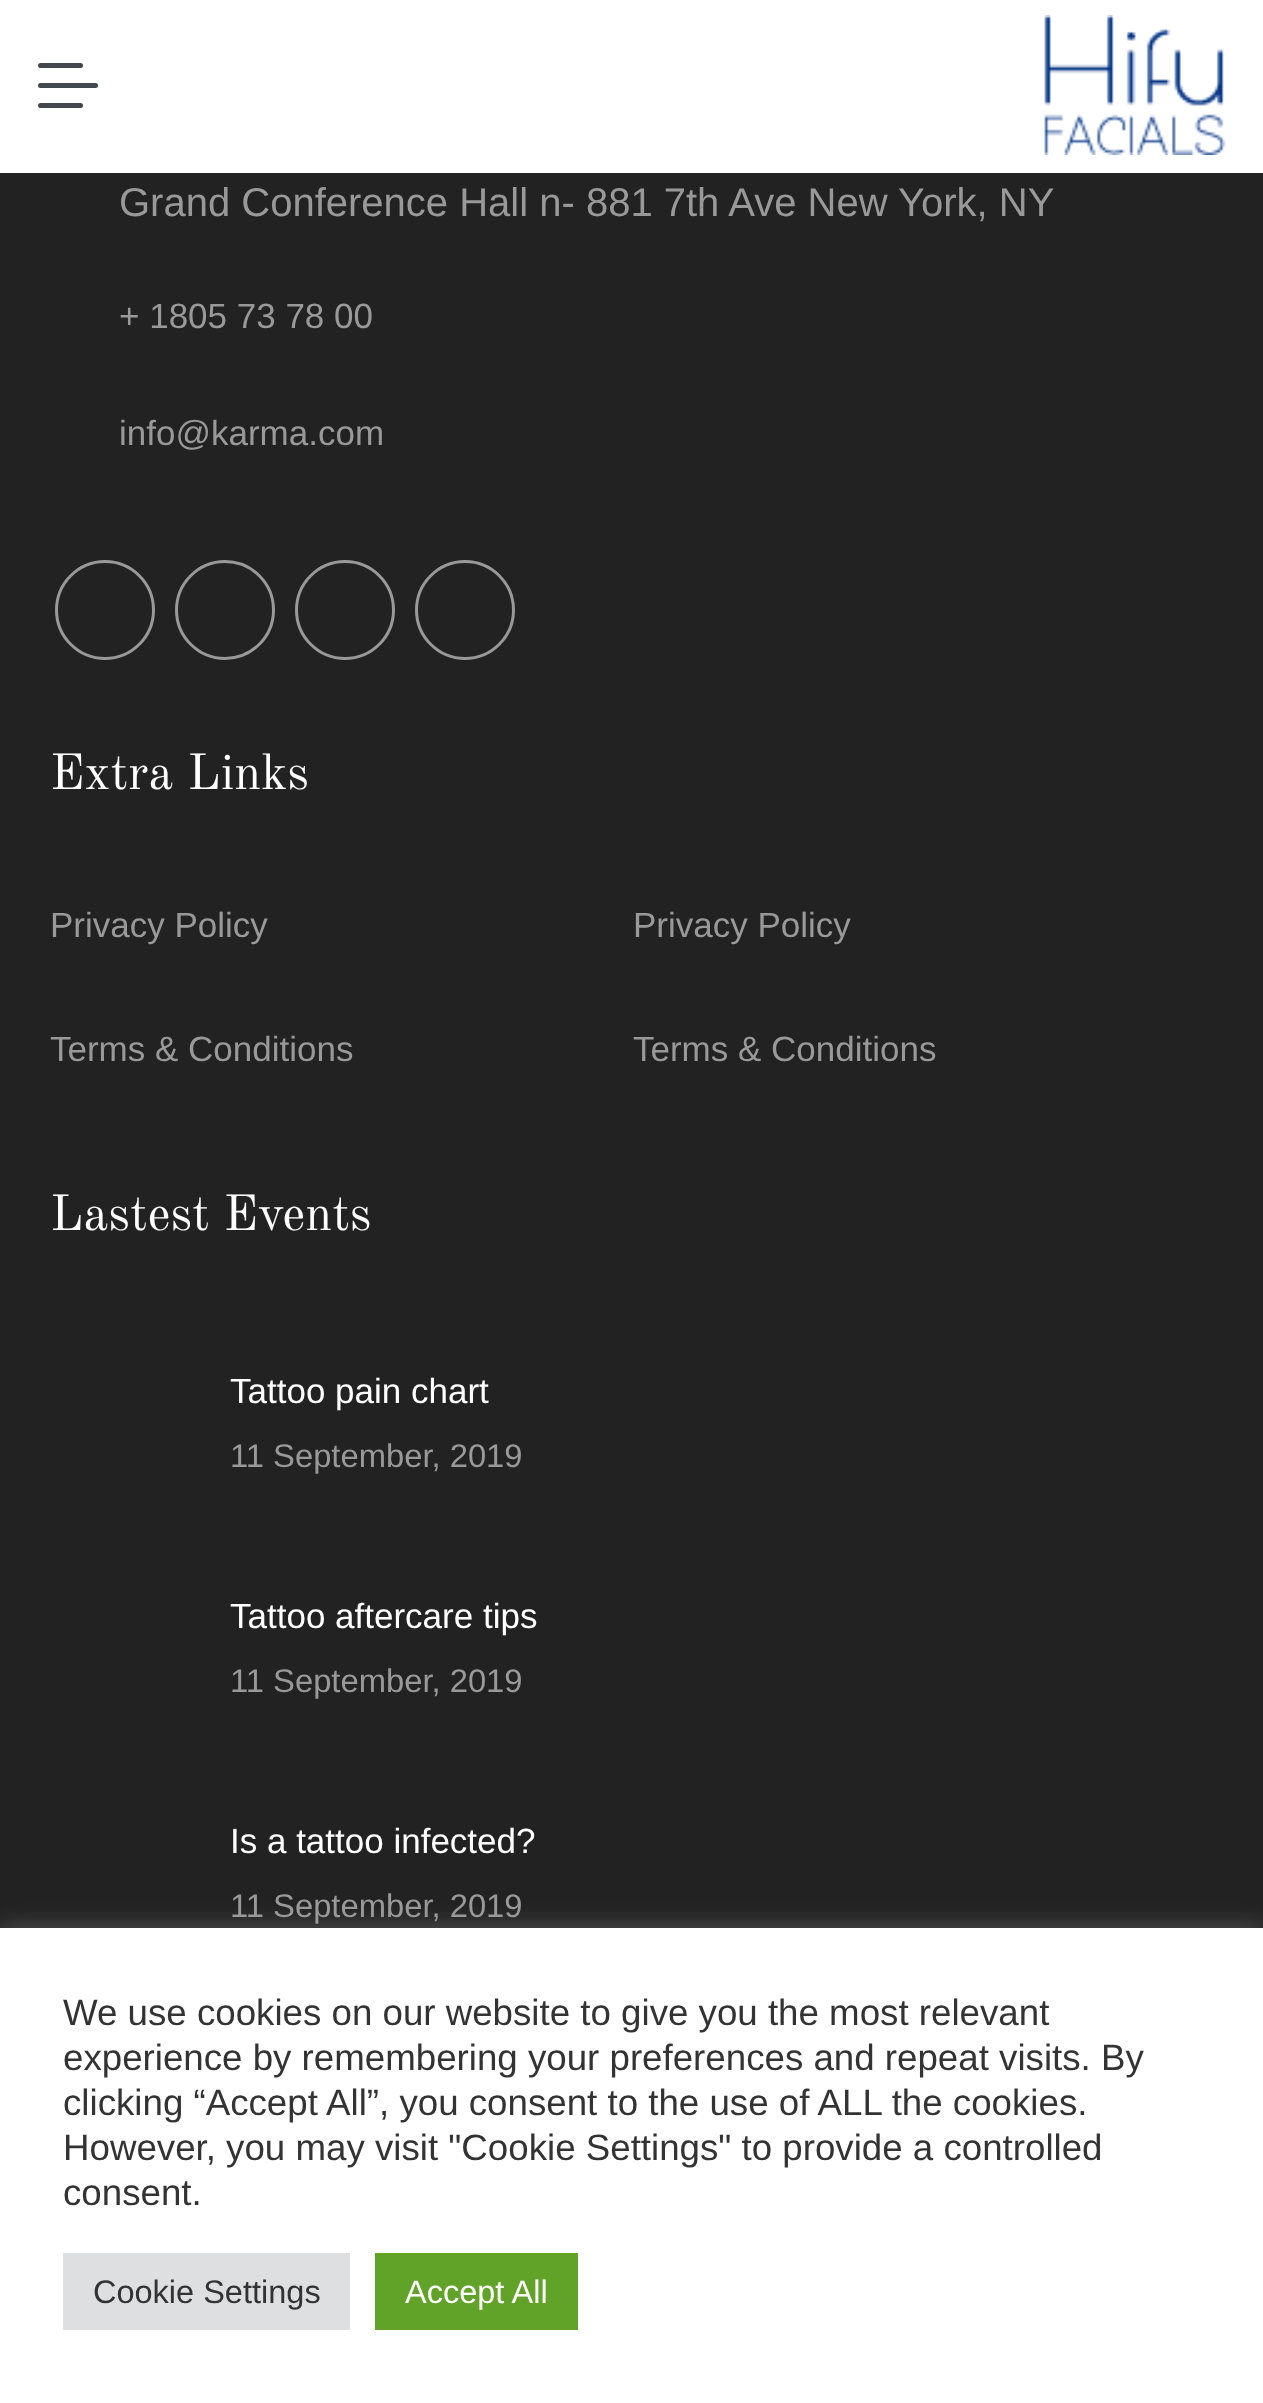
<svg xmlns="http://www.w3.org/2000/svg" width="1263" height="2403">
<style>
.a{font:40px Liberation Sans;fill:#999}
.b{font:35px Liberation Sans;fill:#999}
.c{font:50px Old Standard TT;fill:#fff}
.d{font:35px Liberation Sans;fill:#fff}
.e{font:32.75px Liberation Sans;fill:#999}
.f{font:36.7px Liberation Sans;fill:#333}
.g{font:32.5px Liberation Sans;fill:#333}
.h{font:32.5px Liberation Sans;fill:#fff}
</style>
<rect width="100%" height="100%" fill="#222"/>
<path fill="#fff" d="M0 0h1263v173H0z"/>
<rect fill="#43484e" x="38" y="83" width="60" height="5" rx="2.5"/>
<rect fill="#43484e" x="38" y="63" width="45" height="5" rx="2.5"/>
<rect fill="#43484e" x="38" y="103" width="45" height="5" rx="2.5"/>
<image href="1.png" x="1044" y="15" width="182" height="140"/>
<circle fill="none" stroke="#999" stroke-width="3" cx="105" cy="610" r="48.5"/>
<circle fill="none" stroke="#999" stroke-width="3" cx="225" cy="610" r="48.5"/>
<circle fill="none" stroke="#999" stroke-width="3" cx="345" cy="610" r="48.5"/>
<circle fill="none" stroke="#999" stroke-width="3" cx="465" cy="610" r="48.5"/>
<path fill="#acabab4d" filter="blur(12.5px)" d="M0 1925h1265v478H0z"/>
<path fill="#fff" d="M0 1928h1263v475H0z"/>
<path fill="#dedfe0" d="M63 2253h287v77H63z"/>
<path fill="#61a229" d="M375 2253h203v77H375z"/>
<text class="a" x="119" y="216">Grand Conference Hall n- 881 7th Ave New York, NY</text>
<text class="b" x="119" y="328">+ 1805 73 78 00</text>
<text class="b" x="119" y="445">info@karma.com</text>
<text class="c" x="50" y="789">Extra Links</text>
<text class="b" x="50" y="937">Privacy Policy</text>
<text class="b" x="50" y="1061">Terms &amp; Conditions</text>
<text class="b" x="633" y="937">Privacy Policy</text>
<text class="b" x="633" y="1061">Terms &amp; Conditions</text>
<text class="c" x="50" y="1230">Lastest Events</text>
<text class="d" x="230" y="1403">Tattoo pain chart</text>
<text class="e" x="230" y="1467">11 September, 2019</text>
<text class="d" x="230" y="1628">Tattoo aftercare tips</text>
<text class="e" x="230" y="1692">11 September, 2019</text>
<text class="d" x="230" y="1853">Is a tattoo infected?</text>
<text class="e" x="230" y="1917">11 September, 2019</text>
<text class="f" x="63" y="2025">We use cookies on our website to give you the most relevant</text>
<text class="f" x="63" y="2070">experience by remembering your preferences and repeat visits. By</text>
<text class="f" x="63" y="2115">clicking “Accept All”, you consent to the use of ALL the cookies.</text>
<text class="f" x="63" y="2160">However, you may visit "Cookie Settings" to provide a controlled</text>
<text class="f" x="63" y="2205">consent.</text>
<text class="g" x="93" y="2303">Cookie Settings</text>
<text class="h" x="405" y="2303">Accept All</text>
</svg>
